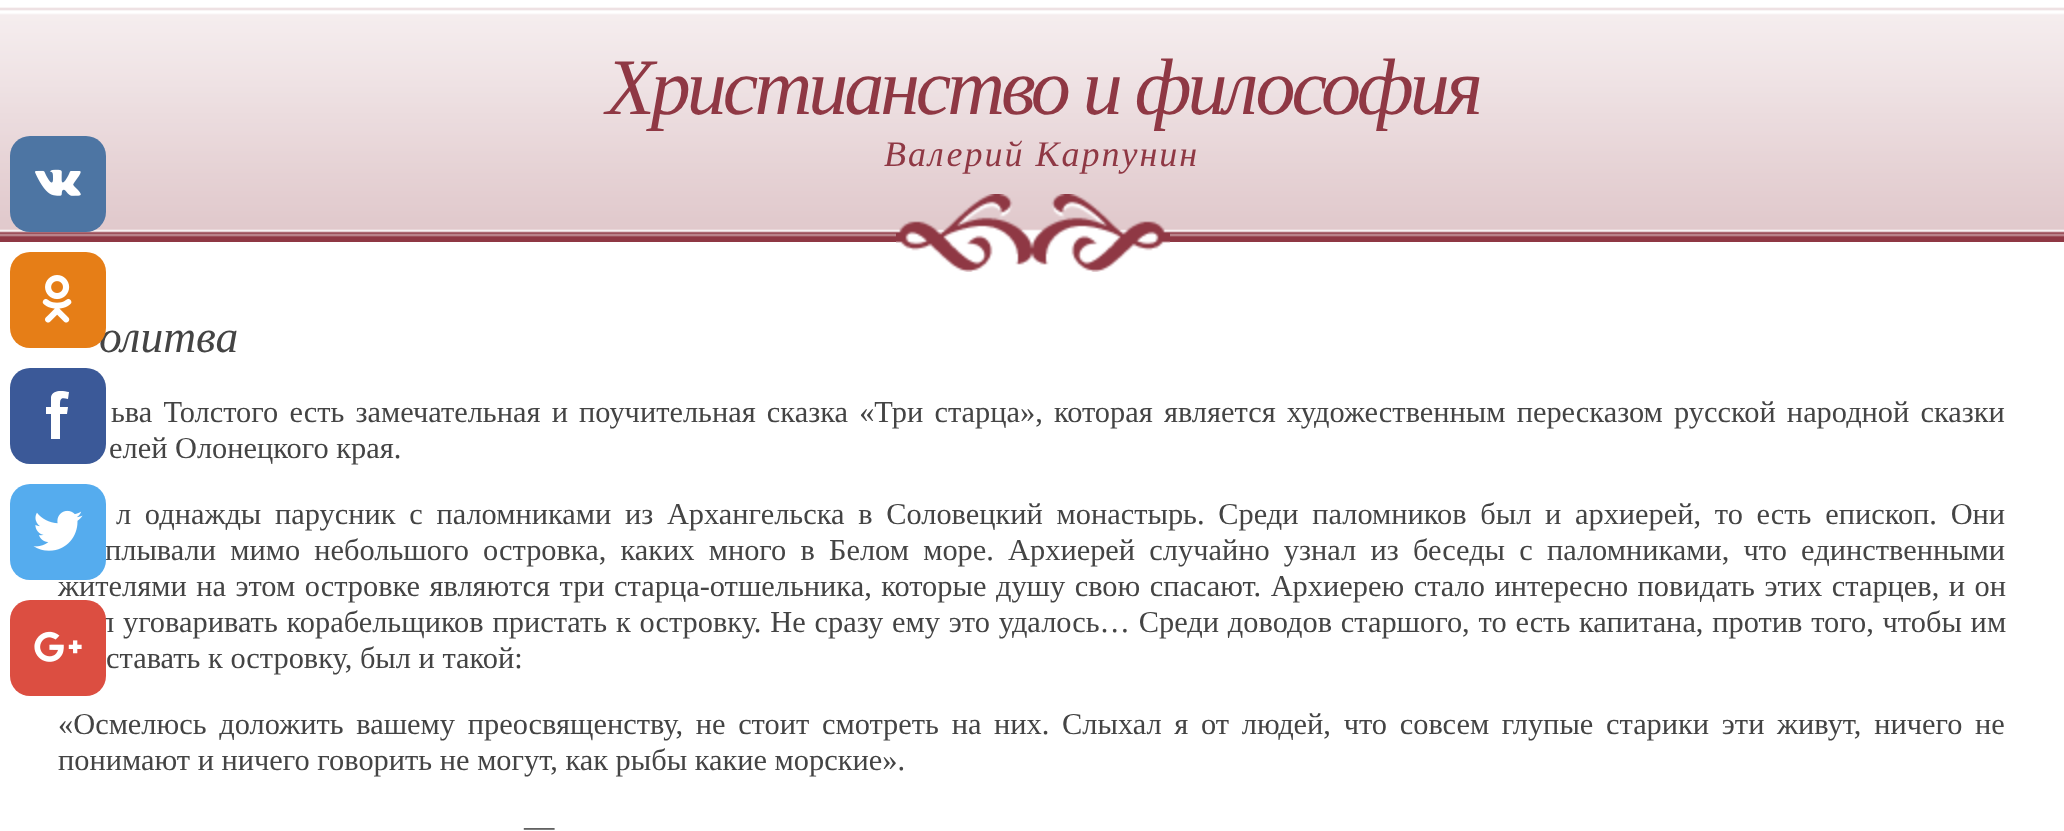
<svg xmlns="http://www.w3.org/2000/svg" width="2064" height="831">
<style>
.a{font:italic 80px Liberation Serif;letter-spacing:-4px;fill:#8f3844}
.b{font:italic 36px Liberation Serif;letter-spacing:2px;fill:#8f3844}
.c{font:italic 45.5px Liberation Serif;fill:#444}
.d{font:30.4px Liberation Serif;fill:#444}
</style>
<rect width="100%" height="100%" fill="#fff"/>
<image href="1.png" x="0" y="7" width="2064" height="235"/>
<image href="2.png" x="896" y="194" width="274" height="78"/>
<rect fill="#4d75a3" x="10" y="136" width="96" height="96" rx="20"/>
<image href="3.png" x="35" y="169" width="46" height="27"/>
<rect fill="#3b5998" x="10" y="368" width="96" height="96" rx="20"/>
<path fill="#fff" d="M46 407h5v-10c2-8 12-6 18-5l-1 7c-8-2-8 0-8 8h8l-1 7h-7v25h-9v-25h-5z"/>
<text class="a" x="606" y="114">Христианство и философия</text>
<text class="b" x="884" y="166">Валерий Карпунин</text>
<text class="c" x="99" y="352">олитва</text>
<rect fill="#e67e17" x="10" y="252" width="96" height="96" rx="20"/>
<image href="4.png" x="42" y="275" width="30" height="48"/>
<text class="d" x="111" y="422" word-spacing="3.6">ьва Толстого есть замечательная и поучительная сказка «Три старца», которая является художественным пересказом русской народной сказки</text>
<text class="d" x="109" y="458">елей Олонецкого края.</text>
<text class="d" x="116" y="524" word-spacing="6.1">л однажды парусник с паломниками из Архангельска в Соловецкий монастырь. Среди паломников был и архиерей, то есть епископ. Они</text>
<text class="d" x="105" y="560" word-spacing="6.6">плывали мимо небольшого островка, каких много в Белом море. Архиерей случайно узнал из беседы с паломниками, что единственными</text>
<text class="d" x="58" y="596" word-spacing="1.9">жителями на этом островке являются три старца-отшельника, которые душу свою спасают. Архиерею стало интересно повидать этих старцев, и он</text>
<rect fill="#55acee" x="10" y="484" width="96" height="96" rx="20"/>
<image href="5.png" x="33" y="510" width="50" height="41"/>
<text class="d" x="99" y="632" word-spacing="1.2">л уговаривать корабельщиков пристать к островку. Не сразу ему это удалось… Среди доводов старшого, то есть капитана, против того, чтобы им</text>
<rect fill="#dc4e41" x="10" y="600" width="96" height="96" rx="20"/>
<image href="6.png" x="34" y="631" width="48" height="31"/>
<text class="d" x="106" y="668">ставать к островку, был и такой:</text>
<text class="d" x="58" y="734" word-spacing="5.1">«Осмелюсь доложить вашему преосвященству, не стоит смотреть на них. Слыхал я от людей, что совсем глупые старики эти живут, ничего не</text>
<text class="d" x="58" y="770">понимают и ничего говорить не могут, как рыбы какие морские».</text>
<text class="d" x="524" y="836" word-spacing="2">—</text>
</svg>
